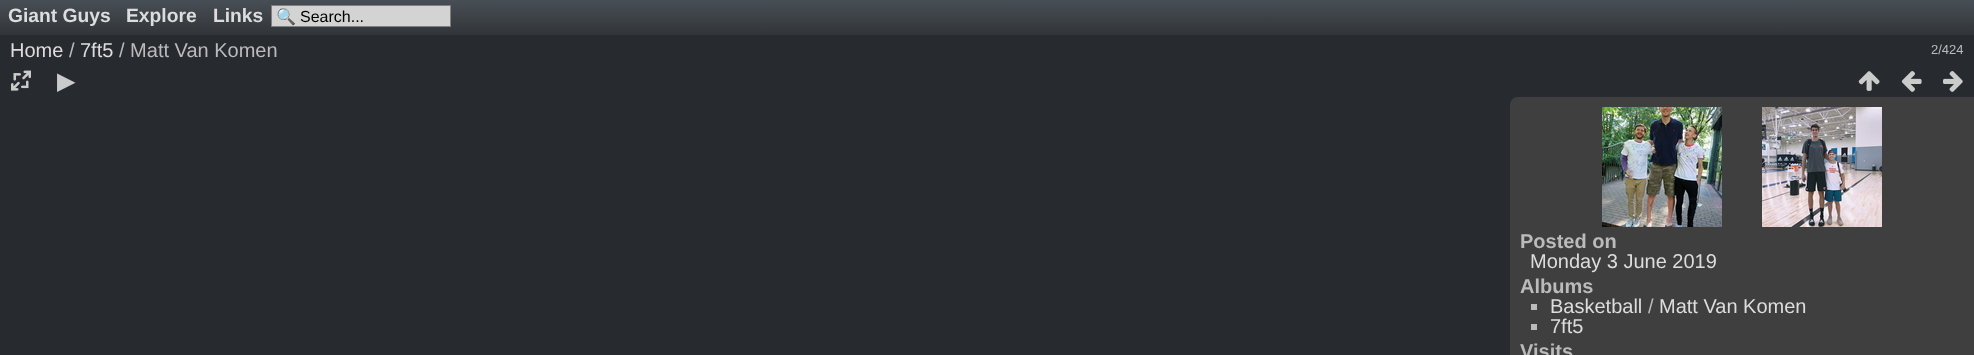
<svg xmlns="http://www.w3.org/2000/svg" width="1974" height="355">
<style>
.a{font:bold 19.25px Liberation Sans;fill:#ddd}
.b{font:16px Noto Color Emoji;fill:#000}
.c{font:16px Liberation Sans;fill:#000}
.d{font:20px Liberation Sans;fill:#ddd}
.e{font:20px Liberation Sans;fill:#bbb}
.f{font:13px Liberation Sans;fill:#bbb}
.g{font:24px DejaVu Sans;fill:#cbcbcc}
.h{font:bold 20px Liberation Sans;fill:#bbb}
</style>
<defs>
<linearGradient id="g1" gradientUnits="userSpaceOnUse" x1="987" y1="0" x2="987" y2="35"><stop offset="0" stop-color="#484e55"/><stop offset="0.6" stop-color="#3a3f44"/><stop offset="1" stop-color="#313539"/></linearGradient>
</defs>
<rect width="100%" height="100%" fill="#272b30"/>
<path fill="url(#g1)" d="M0 0h1974v35H0z"/>
<path fill="#d3d3d3" stroke="#808080" d="M271.5 5.5h179v21H271.5z"/>
<image href="1.png" x="11" y="70" width="20" height="21"/>
<image href="2.png" x="1858" y="71" width="22" height="20"/>
<image href="3.png" x="1901" y="71" width="21" height="21"/>
<image href="4.png" x="1943" y="71" width="20" height="21"/>
<path fill="#3f3f3f" d="M1518 97h456v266h-456c-4.5 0-8-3.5-8-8v-250c0-4.5 3.5-8 8-8z"/>
<image href="5.png" x="1602" y="107" width="120" height="120"/>
<image href="6.png" x="1762" y="107" width="120" height="120"/>
<path fill="#bbb" d="M1531 304h6v6H1531z"/>
<path fill="#bbb" d="M1531 324h6v6H1531z"/>
<text class="a" x="8" y="22">Giant Guys</text>
<text class="a" x="126" y="22">Explore</text>
<text class="a" x="213" y="22">Links</text>
<text class="b" x="276" y="22">🔍</text>
<text class="c" x="300" y="22">Search...</text>
<text class="d" x="10" y="57">Home</text>
<text class="e" x="69" y="57">/</text>
<text class="d" x="80" y="57">7ft5</text>
<text class="e" x="119" y="57">/ Matt Van Komen</text>
<text class="f" x="1931" y="54">2/424</text>
<text class="g" x="57" y="89">▶</text>
<text class="h" x="1520" y="248">Posted on</text>
<text class="d" x="1530" y="268">Monday 3 June 2019</text>
<text class="h" x="1520" y="293">Albums</text>
<text class="d" x="1550" y="313">Basketball</text>
<text class="e" x="1648" y="313">/</text>
<text class="d" x="1659" y="313">Matt Van Komen</text>
<text class="d" x="1550" y="333">7ft5</text>
<text class="h" x="1520" y="358">Visits</text>
</svg>
